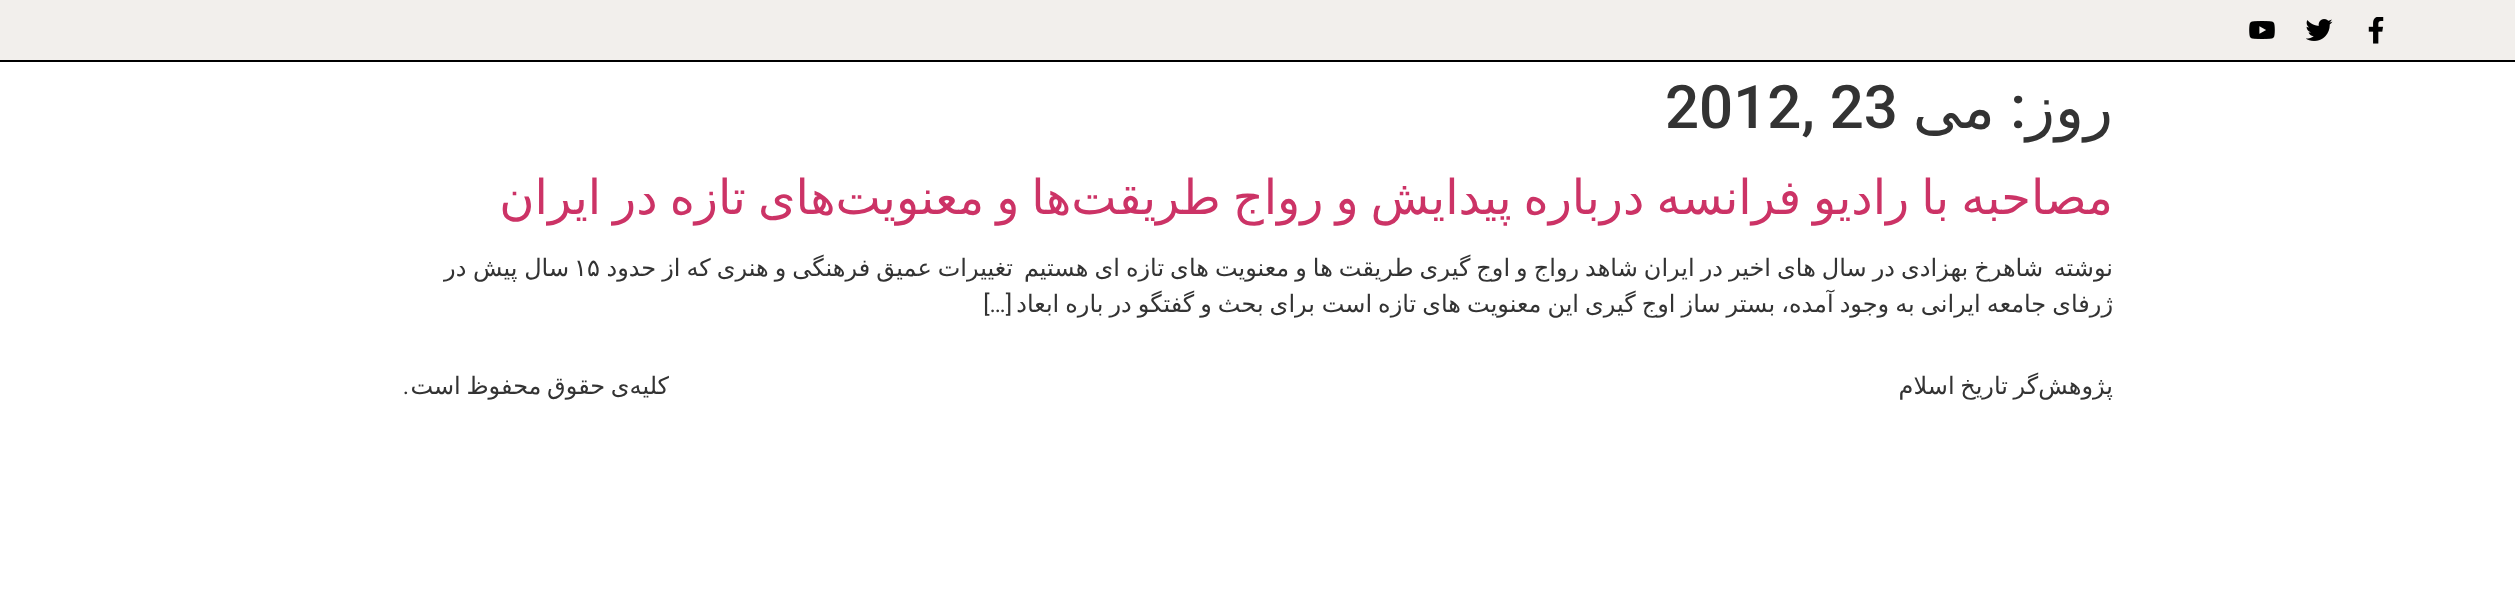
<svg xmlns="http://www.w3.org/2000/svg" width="2515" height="608">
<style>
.a{font:60px DejaVu Sans;direction:rtl;fill:#333}
.b{font:500 60px Roboto;direction:rtl;fill:#333}
.c{font:500 60px Roboto;fill:#333}
.d{font:48px DejaVu Sans;direction:rtl;fill:#c36}
.e{font:24px DejaVu Sans;direction:rtl;fill:#333}
.f{font:24px DejaVu Sans;fill:#333}
.g{font:24px Roboto;direction:rtl;fill:#333}
</style>
<rect width="100%" height="100%" fill="#fff"/>
<path fill="#f2efec" d="M0 0h2515v60H0z"/>
<path fill="#000" d="M0 60h2515v2H0z"/>
<image href="1.png" x="2368" y="17" width="16" height="27"/>
<image href="2.png" x="2306" y="19" width="27" height="22"/>
<image href="3.png" x="2249" y="21" width="26" height="18"/>
<text class="a" x="2113" y="128">روز</text>
<text class="b" x="2026" y="128">:</text>
<text class="a" x="1995" y="128">می</text>
<text class="c" x="1665" y="128">2012, 23</text>
<text class="d" x="2113" y="214" word-spacing="-3.25">مصاحبه با راديو فرانسه درباره پیدایش و رواج طریقت‌ها و معنویت‌های تازه در ایران</text>
<text class="e" x="2113" y="276">نوشته</text>
<text class="e" x="2043" y="276" word-spacing="-1.6">شاهرخ بهزادی در سال های اخیر در ایران شاهد رواج و اوج گیری طریقت ها و معنویت های تازه ای هستیم</text>
<text class="e" x="1013" y="276" word-spacing="-1.6">تغییرات عمیق فرهنگی و هنری که از حدود</text>
<text class="f" x="574" y="276">۱۵</text>
<text class="e" x="569" y="276" word-spacing="-1">سال پیش در</text>
<text class="e" x="1315" y="312" word-spacing="-1.6">برای بحث و گفتگو در باره ابعاد</text>
<text class="e" x="2113" y="312" word-spacing="-1.6">ژرفای جامعه ایرانی به وجود آمده، بستر ساز اوج گیری این معنویت های تازه است</text>
<text class="g" x="1012" y="312">[…]</text>
<text class="e" x="2113" y="394" word-spacing="-2">پژوهش‌گر تاریخ اسلام</text>
<text class="e" x="669" y="394" word-spacing="-2">کلیه‌ی حقوق محفوظ است</text>
<text class="g" x="409" y="394">.</text>
</svg>
